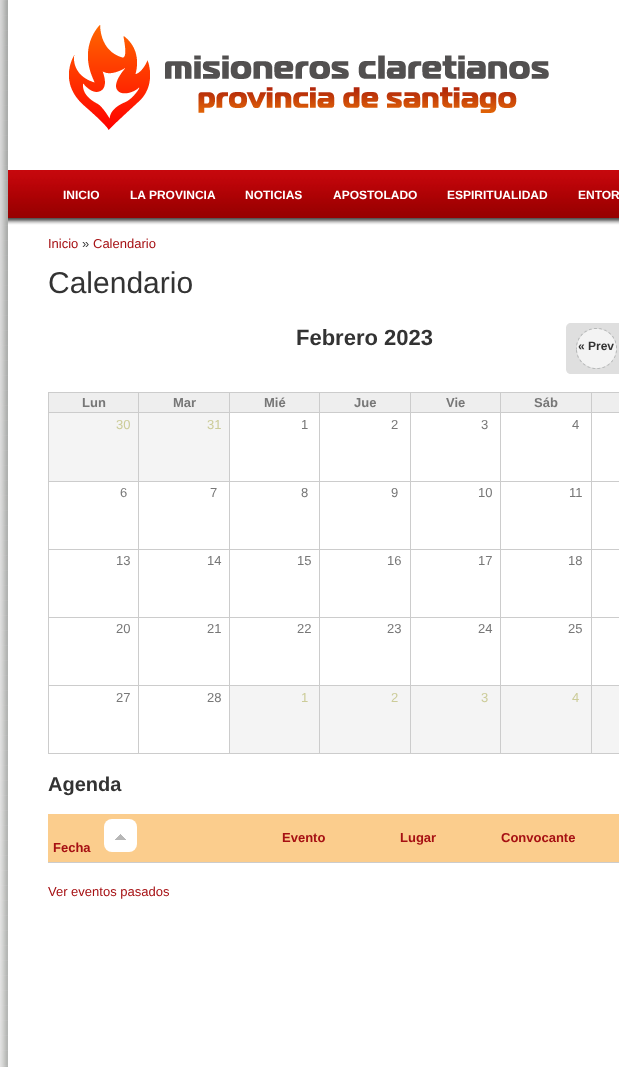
<svg xmlns="http://www.w3.org/2000/svg" width="619" height="1067">
<style>
.a{font:bold 12px Liberation Sans;fill:#fff}
.b{font:13px Liberation Sans;fill:#a61013}
.c{font:13px Liberation Sans;fill:#333}
.d{font:30px Liberation Sans;fill:#333}
.e{font:bold 22px Liberation Sans;fill:#333}
.f{font:bold 12px Liberation Sans;fill:#333}
.g{font:bold 13px Liberation Sans;fill:#777}
.h{font:13px Liberation Sans;fill:#cc9}
.i{font:13px Liberation Sans;fill:#777}
.j{font:bold 20px Liberation Sans;fill:#333}
.k{font:bold 13px Liberation Sans;fill:#a61013}
</style>
<rect width="100%" height="100%" fill="#fff"/>
<image href="1.png" x="0" y="0" width="8" height="1067"/>
<image href="2.png" x="0" y="0" width="8" height="1067"/>
<image href="3.png" x="69" y="25" width="480" height="105"/>
<image href="4.png" x="8" y="170" width="611" height="55"/>
<path fill="#dfdfdf" d="M571 323h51v51h-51c-3 0-5-2-5-5v-41c0-3 2-5 5-5z"/>
<image href="5.png" x="576" y="328" width="41" height="41"/>
<path fill="#eee" d="M49 393h89v19H49z"/>
<path fill="#ccc" d="M591 392h28v1H591z"/>
<path fill="#ccc" d="M591 412h28v1H591z"/>
<path fill="#ccc" d="M591 481h28v1H591z"/>
<path fill="#ccc" d="M591 549h28v1H591z"/>
<path fill="#ccc" d="M591 617h28v1H591z"/>
<path fill="#ccc" d="M591 685h28v1H591z"/>
<path fill="#ccc" d="M591 753h28v1H591z"/>
<path fill="#ccc" d="M591 708h1v46H591z"/>
<path fill="#ccc" d="M591 685h1v24H591z"/>
<path fill="#ccc" d="M500 685h92v1H500z"/>
<path fill="#ccc" d="M591 640h1v46H591z"/>
<path fill="#ccc" d="M591 617h1v24H591z"/>
<path fill="#ccc" d="M500 617h92v1H500z"/>
<path fill="#ccc" d="M591 571h1v47H591z"/>
<path fill="#ccc" d="M591 549h1v23H591z"/>
<path fill="#ccc" d="M500 549h92v1H500z"/>
<path fill="#ccc" d="M591 503h1v47H591z"/>
<path fill="#ccc" d="M591 481h1v23H591z"/>
<path fill="#ccc" d="M500 481h92v1H500z"/>
<path fill="#ccc" d="M591 435h1v47H591z"/>
<path fill="#ccc" d="M591 412h1v24H591z"/>
<path fill="#ccc" d="M500 412h92v1H500z"/>
<path fill="#ccc" d="M591 392h1v21H591z"/>
<path fill="#ccc" d="M500 392h92v1H500z"/>
<path fill="#ccc" d="M500 753h92v1H500z"/>
<path fill="#ccc" d="M500 708h1v46H500z"/>
<path fill="#ccc" d="M500 685h1v24H500z"/>
<path fill="#ccc" d="M410 685h91v1H410z"/>
<path fill="#ccc" d="M500 640h1v46H500z"/>
<path fill="#ccc" d="M500 617h1v24H500z"/>
<path fill="#ccc" d="M410 617h91v1H410z"/>
<path fill="#ccc" d="M500 571h1v47H500z"/>
<path fill="#ccc" d="M500 549h1v23H500z"/>
<path fill="#ccc" d="M410 549h91v1H410z"/>
<path fill="#ccc" d="M500 503h1v47H500z"/>
<path fill="#ccc" d="M500 481h1v23H500z"/>
<path fill="#ccc" d="M410 481h91v1H410z"/>
<path fill="#ccc" d="M500 435h1v47H500z"/>
<path fill="#ccc" d="M500 412h1v24H500z"/>
<path fill="#ccc" d="M410 412h91v1H410z"/>
<path fill="#ccc" d="M500 392h1v21H500z"/>
<path fill="#ccc" d="M410 392h91v1H410z"/>
<path fill="#ccc" d="M410 753h91v1H410z"/>
<path fill="#ccc" d="M410 708h1v46H410z"/>
<path fill="#ccc" d="M410 685h1v24H410z"/>
<path fill="#ccc" d="M319 685h92v1H319z"/>
<path fill="#ccc" d="M410 640h1v46H410z"/>
<path fill="#ccc" d="M410 617h1v24H410z"/>
<path fill="#ccc" d="M319 617h92v1H319z"/>
<path fill="#ccc" d="M410 571h1v47H410z"/>
<path fill="#ccc" d="M410 549h1v23H410z"/>
<path fill="#ccc" d="M319 549h92v1H319z"/>
<path fill="#ccc" d="M410 503h1v47H410z"/>
<path fill="#ccc" d="M410 481h1v23H410z"/>
<path fill="#ccc" d="M319 481h92v1H319z"/>
<path fill="#ccc" d="M410 435h1v47H410z"/>
<path fill="#ccc" d="M410 412h1v24H410z"/>
<path fill="#ccc" d="M319 412h92v1H319z"/>
<path fill="#ccc" d="M410 392h1v21H410z"/>
<path fill="#ccc" d="M319 392h92v1H319z"/>
<path fill="#ccc" d="M319 753h92v1H319z"/>
<path fill="#ccc" d="M319 708h1v46H319z"/>
<path fill="#ccc" d="M319 685h1v24H319z"/>
<path fill="#ccc" d="M229 685h91v1H229z"/>
<path fill="#ccc" d="M319 640h1v46H319z"/>
<path fill="#ccc" d="M319 617h1v24H319z"/>
<path fill="#ccc" d="M229 617h91v1H229z"/>
<path fill="#ccc" d="M319 571h1v47H319z"/>
<path fill="#ccc" d="M319 549h1v23H319z"/>
<path fill="#ccc" d="M229 549h91v1H229z"/>
<path fill="#ccc" d="M319 503h1v47H319z"/>
<path fill="#ccc" d="M319 481h1v23H319z"/>
<path fill="#ccc" d="M229 481h91v1H229z"/>
<path fill="#ccc" d="M319 435h1v47H319z"/>
<path fill="#ccc" d="M319 412h1v24H319z"/>
<path fill="#ccc" d="M229 412h91v1H229z"/>
<path fill="#ccc" d="M319 392h1v21H319z"/>
<path fill="#ccc" d="M229 392h91v1H229z"/>
<path fill="#ccc" d="M229 753h91v1H229z"/>
<path fill="#ccc" d="M229 708h1v46H229z"/>
<path fill="#ccc" d="M229 685h1v24H229z"/>
<path fill="#ccc" d="M138 685h92v1H138z"/>
<path fill="#ccc" d="M229 640h1v46H229z"/>
<path fill="#ccc" d="M229 617h1v24H229z"/>
<path fill="#ccc" d="M138 617h92v1H138z"/>
<path fill="#ccc" d="M229 571h1v47H229z"/>
<path fill="#ccc" d="M229 549h1v23H229z"/>
<path fill="#ccc" d="M138 549h92v1H138z"/>
<path fill="#ccc" d="M229 503h1v47H229z"/>
<path fill="#ccc" d="M229 481h1v23H229z"/>
<path fill="#ccc" d="M138 481h92v1H138z"/>
<path fill="#ccc" d="M229 435h1v47H229z"/>
<path fill="#ccc" d="M229 412h1v24H229z"/>
<path fill="#ccc" d="M138 412h92v1H138z"/>
<path fill="#ccc" d="M229 392h1v21H229z"/>
<path fill="#ccc" d="M138 392h92v1H138z"/>
<path fill="#ccc" d="M138 753h92v1H138z"/>
<path fill="#ccc" d="M138 708h1v46H138z"/>
<path fill="#ccc" d="M138 685h1v24H138z"/>
<path fill="#ccc" d="M48 685h91v1H48z"/>
<path fill="#ccc" d="M138 640h1v46H138z"/>
<path fill="#ccc" d="M138 617h1v24H138z"/>
<path fill="#ccc" d="M48 617h91v1H48z"/>
<path fill="#ccc" d="M138 571h1v47H138z"/>
<path fill="#ccc" d="M138 549h1v23H138z"/>
<path fill="#ccc" d="M48 549h91v1H48z"/>
<path fill="#ccc" d="M138 503h1v47H138z"/>
<path fill="#ccc" d="M138 481h1v23H138z"/>
<path fill="#ccc" d="M48 481h91v1H48z"/>
<path fill="#ccc" d="M138 435h1v47H138z"/>
<path fill="#ccc" d="M138 412h1v24H138z"/>
<path fill="#ccc" d="M48 412h91v1H48z"/>
<path fill="#ccc" d="M138 392h1v21H138z"/>
<path fill="#ccc" d="M48 392h91v1H48z"/>
<path fill="#ccc" d="M48 753h91v1H48z"/>
<path fill="#ccc" d="M48 708h1v46H48z"/>
<path fill="#ccc" d="M48 640h1v69H48z"/>
<path fill="#ccc" d="M48 571h1v70H48z"/>
<path fill="#ccc" d="M48 503h1v69H48z"/>
<path fill="#ccc" d="M48 435h1v69H48z"/>
<path fill="#ccc" d="M48 412h1v24H48z"/>
<path fill="#ccc" d="M48 392h1v21H48z"/>
<path fill="#eee" d="M139 393h90v19H139z"/>
<path fill="#eee" d="M230 393h89v19H230z"/>
<path fill="#eee" d="M320 393h90v19H320z"/>
<path fill="#eee" d="M411 393h89v19H411z"/>
<path fill="#eee" d="M501 393h90v19H501z"/>
<path fill="#eee" d="M592 393h27v19H592z"/>
<path fill="#f4f4f4" d="M49 413h89v68H49z"/>
<path fill="#f4f4f4" d="M139 413h90v68H139z"/>
<path fill="#f4f4f4" d="M230 686h89v67H230z"/>
<path fill="#f4f4f4" d="M320 686h90v67H320z"/>
<path fill="#f4f4f4" d="M411 686h89v67H411z"/>
<path fill="#f4f4f4" d="M501 686h90v67H501z"/>
<path fill="#f4f4f4" d="M592 686h27v67H592z"/>
<path fill="#fbcd8d" d="M48 814h571v48H48z"/>
<rect fill="#fff" x="104" y="819" width="33" height="33" rx="8"/>
<image href="6.png" x="115" y="834" width="11" height="6"/>
<path fill="#ccc" d="M48 862h571v1H48z"/>
<text class="a" x="63" y="199">INICIO</text>
<text class="a" x="130" y="199">LA PROVINCIA</text>
<text class="a" x="245" y="199">NOTICIAS</text>
<text class="a" x="333" y="199">APOSTOLADO</text>
<text class="a" x="447" y="199">ESPIRITUALIDAD</text>
<text class="a" x="578" y="199">ENTOR</text>
<text class="b" x="48" y="248">Inicio</text>
<text class="c" x="82" y="248">»</text>
<text class="b" x="93" y="248">Calendario</text>
<text class="d" x="48" y="293">Calendario</text>
<text class="e" x="296" y="345">Febrero 2023</text>
<text class="f" x="578" y="350">« Prev</text>
<text class="g" x="82" y="407">Lun</text>
<text class="g" x="173" y="407">Mar</text>
<text class="g" x="264" y="407">Mié</text>
<text class="g" x="354" y="407">Jue</text>
<text class="g" x="446" y="407">Vie</text>
<text class="g" x="534" y="407">Sáb</text>
<text class="h" x="116" y="429">30</text>
<text class="h" x="207" y="429">31</text>
<text class="i" x="301" y="429">1</text>
<text class="i" x="391" y="429">2</text>
<text class="i" x="481" y="429">3</text>
<text class="i" x="572" y="429">4</text>
<text class="i" x="120" y="497">6</text>
<text class="i" x="210" y="497">7</text>
<text class="i" x="301" y="497">8</text>
<text class="i" x="391" y="497">9</text>
<text class="i" x="478" y="497">10</text>
<text class="i" x="569" y="497">11</text>
<text class="i" x="116" y="565">13</text>
<text class="i" x="207" y="565">14</text>
<text class="i" x="297" y="565">15</text>
<text class="i" x="387" y="565">16</text>
<text class="i" x="478" y="565">17</text>
<text class="i" x="568" y="565">18</text>
<text class="i" x="116" y="633">20</text>
<text class="i" x="207" y="633">21</text>
<text class="i" x="297" y="633">22</text>
<text class="i" x="387" y="633">23</text>
<text class="i" x="478" y="633">24</text>
<text class="i" x="568" y="633">25</text>
<text class="i" x="116" y="702">27</text>
<text class="i" x="207" y="702">28</text>
<text class="h" x="301" y="702">1</text>
<text class="h" x="391" y="702">2</text>
<text class="h" x="481" y="702">3</text>
<text class="h" x="572" y="702">4</text>
<text class="j" x="48" y="791">Agenda</text>
<text class="k" x="282" y="842">Evento</text>
<text class="k" x="400" y="842">Lugar</text>
<text class="k" x="501" y="842">Convocante</text>
<text class="k" x="53" y="852">Fecha</text>
<text class="b" x="48" y="896">Ver eventos pasados</text>
</svg>
